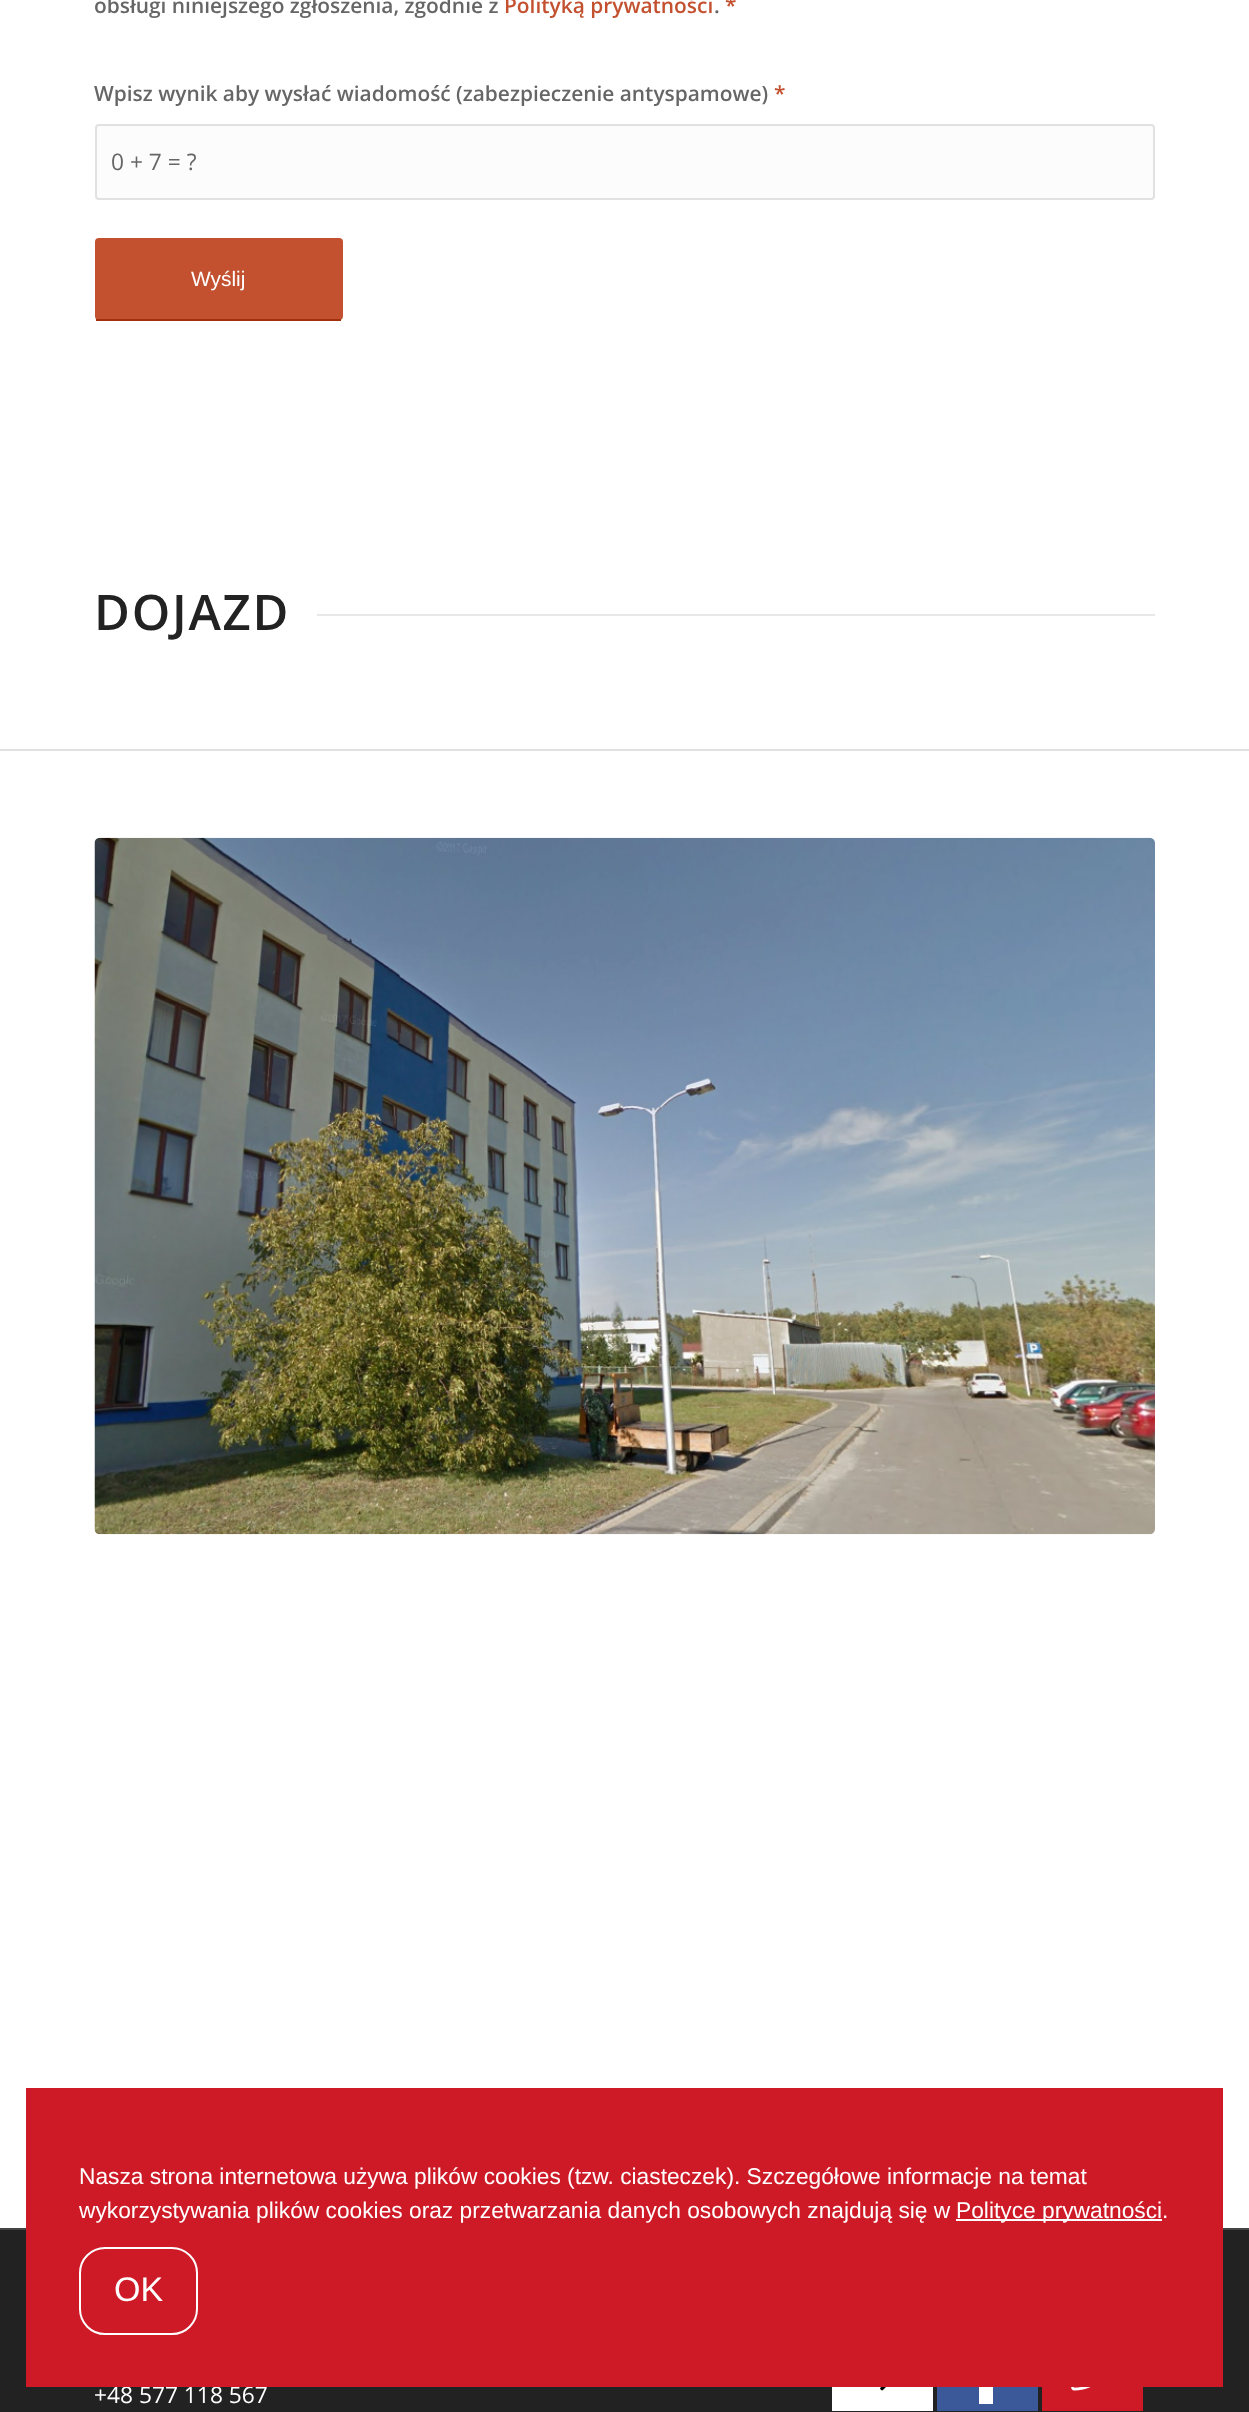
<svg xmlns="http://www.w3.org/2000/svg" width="1249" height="2412">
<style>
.a{font:600 20.9px Open Sans;fill:#666}
.b{font:600 20.9px Open Sans;fill:#c3512f}
.c{font:22.75px Open Sans;fill:#666}
.d{font:20.9px Liberation Sans;fill:#fff}
.e{font:600 49px Open Sans;letter-spacing:1.75px;fill:#222}
.f{font:22.75px Open Sans;fill:#fff}
.g{font:22.75px Liberation Sans;fill:#fff}
.h{font:34px Liberation Sans;fill:#fff}
</style>
<rect width="100%" height="100%" fill="#fff"/>
<rect fill="#fcfcfc" stroke="#e1e1e1" stroke-width="2" x="96" y="125" width="1058" height="74" rx="3"/>
<rect fill="#c3512f" x="95" y="238" width="248" height="82" rx="4"/>
<path fill="#a1300d" d="M96 319h245v2H96z"/>
<path fill="#e8e8e8" d="M317 614h838v2H317z"/>
<path fill="#e1e1e1" d="M0 749h1249v2H0z"/>
<image href="1.png" x="94" y="837" width="1061" height="698"/>
<path fill="#222" d="M0 2230h1249v182H0z"/>
<path fill="#444" d="M0 2228h1249v2H0z"/>
<path fill="#fff" d="M832 2387h101v24H832z"/>
<image href="2.png" x="880" y="2387" width="6" height="4"/>
<path fill="#3b5998" d="M937 2387h101v24H937z"/>
<path fill="#fff" d="M1004 2372l2-13h-13c0-13-1-16 13-16v-11c-11-2-24-1-27 13v14h-11v13h11v32h14v-32z"/>
<path fill="#ce1a27" d="M1042 2387h101v24H1042z"/>
<image href="3.png" x="1071" y="2387" width="20" height="4"/>
<text class="a" x="94" y="13">obsługi niniejszego zgłoszenia, zgodnie z</text>
<text class="b" x="504" y="13">Polityką prywatności</text>
<text class="b" x="725" y="13">*</text>
<text class="a" x="714" y="13">.</text>
<text class="a" x="94" y="101">Wpisz wynik aby wysłać wiadomość (zabezpieczenie antyspamowe)</text>
<text class="b" x="774" y="101">*</text>
<text class="c" x="111" y="170">0 + 7 = ?</text>
<text class="d" x="191" y="286">Wyślij</text>
<text class="e" x="94" y="630">DOJAZD</text>
<text class="f" x="94" y="2403">+48 577 118 567</text>
<path fill="#ce1a27" d="M26 2088h1197v299H26z"/>
<text class="g" x="79" y="2184">Nasza strona internetowa używa plików cookies (tzw. ciasteczek). Szczegółowe informacje na temat</text>
<text class="g" x="79" y="2218">wykorzystywania plików cookies oraz przetwarzania danych osobowych znajdują się w</text>
<path fill="#fff" d="M956 2219h206v2H956z"/>
<text class="g" x="956" y="2218">Polityce prywatności.</text>
<rect fill="none" stroke="#fff" stroke-width="2" x="80" y="2248" width="117" height="86" rx="25"/>
<text class="h" x="114" y="2301">OK</text>
</svg>
